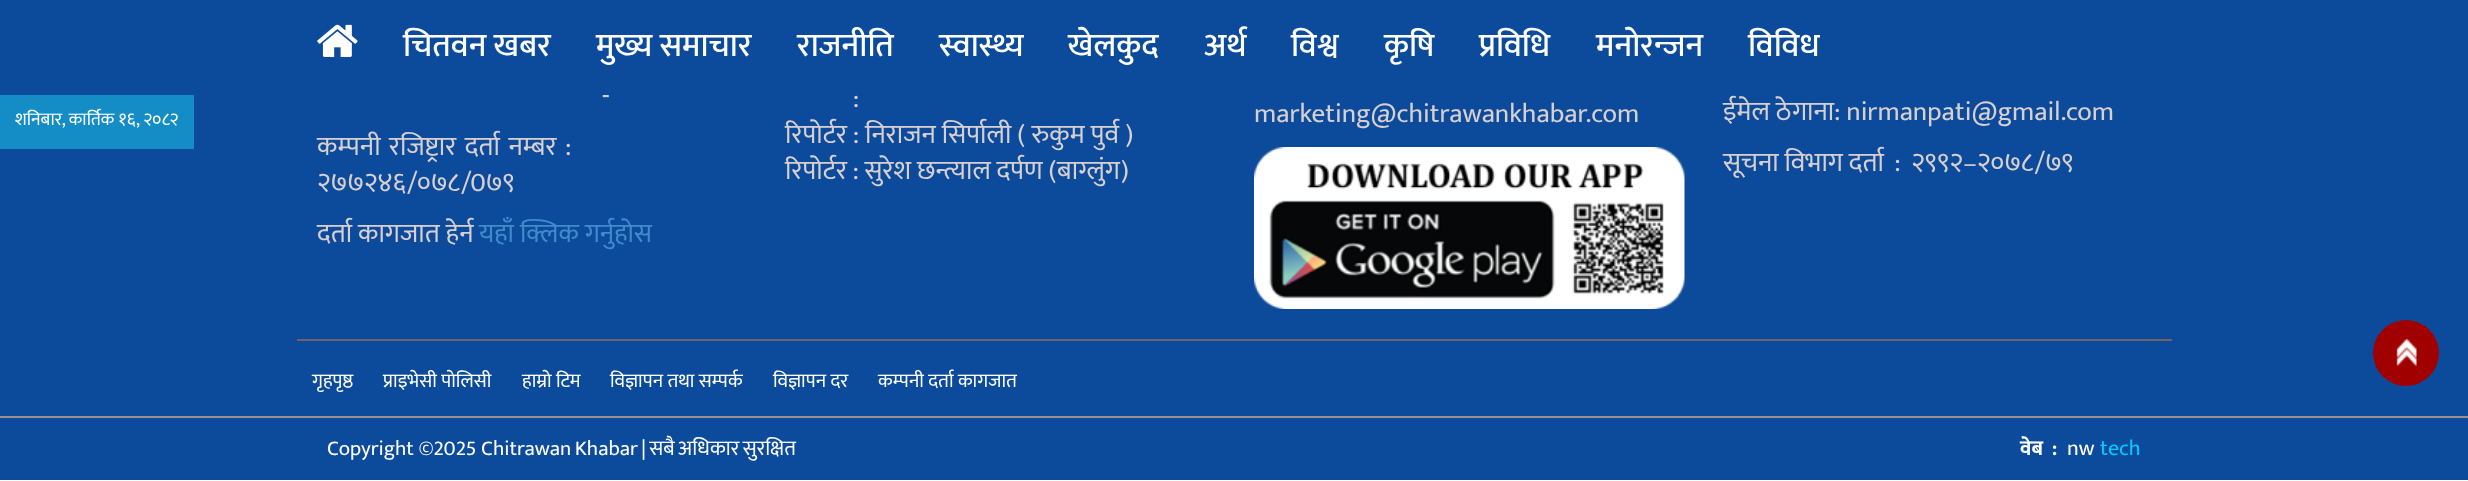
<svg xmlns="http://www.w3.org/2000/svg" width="2468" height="481">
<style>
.a{font:500 33px Ek Mukta;fill:#fff}
.b{font:18px Ek Mukta;fill:#fff}
.c{font:27px Ek Mukta;fill:#d8d0d0}
.d{font:27px Ek Mukta;fill:#428bca}
.e{font:19.5px Ek Mukta;fill:#fff}
.f{font:21px Ek Mukta;fill:#fff}
.g{font:bold 21px Ek Mukta;fill:#fff}
.h{font:22px Ek Mukta;fill:#fff}
.i{font:22px Ek Mukta;fill:#0cf}
</style>
<rect width="100%" height="100%" fill="#fff"/>
<path fill="#0c4b9b" d="M0 0h2468v416H0z"/>
<image href="1.png" x="317" y="24" width="41" height="33"/>
<path fill="#148dc6" d="M0 95h194v54H0z"/>
<image href="2.png" x="1254" y="147" width="431" height="162"/>
<path fill="#726262" d="M297 339h1875v2H297z"/>
<path fill="#0c4b9b" d="M0 418h2468v62H0z"/>
<path fill="#9b9090" d="M0 416h2468v2H0z"/>
<circle fill="#a00000" cx="2406" cy="353" r="33"/>
<image href="3.png" x="2396" y="339" width="21" height="27"/>
<text class="a" x="403" y="56">चितवन खबर</text>
<text class="a" x="596" y="56">मुख्य समाचार</text>
<text class="a" x="797" y="56">राजनीति</text>
<text class="a" x="939" y="56">स्वास्थ्य</text>
<text class="a" x="1068" y="56">खेलकुद</text>
<text class="a" x="1204" y="56">अर्थ</text>
<text class="a" x="1291" y="56">विश्व</text>
<text class="a" x="1384" y="56">कृषि</text>
<text class="a" x="1479" y="56">प्रविधि</text>
<text class="a" x="1596" y="56">मनोरन्जन</text>
<text class="a" x="1748" y="56">विविध</text>
<text class="b" x="15" y="125">शनिबार, कार्तिक १६, २०८२</text>
<text class="c" x="602" y="104">-</text>
<text class="c" x="317" y="155" word-spacing="2.5">कम्पनी रजिष्ट्रार दर्ता नम्बर :</text>
<text class="c" x="317" y="191">२७७२४६/०७८/0७९</text>
<text class="c" x="317" y="242">दर्ता कागजात हेर्न</text>
<text class="d" x="479" y="242">यहाँ क्लिक गर्नुहोस</text>
<text class="c" x="853" y="107">:</text>
<text class="c" x="785" y="143">रिपोर्टर : निराजन सिर्पाली ( रुकुम पुर्व )</text>
<text class="c" x="785" y="179" word-spacing="-0.25">रिपोर्टर : सुरेश छन्त्याल दर्पण (बाग्लुंग)</text>
<text class="c" x="1254" y="122">marketing@chitrawankhabar.com</text>
<text class="c" x="1723" y="120">ईमेल ठेगाना: nirmanpati@gmail.com</text>
<text class="c" xml:space="preserve" x="1723" y="171" word-spacing="-0.25">सूचना विभाग दर्ता  :  २९९२–२०७८/७९</text>
<text class="e" x="312" y="387">गृहपृष्ठ</text>
<text class="e" x="383" y="387">प्राइभेसी पोलिसी</text>
<text class="e" x="522" y="387">हाम्रो टिम</text>
<text class="e" x="610" y="387">विज्ञापन तथा सम्पर्क</text>
<text class="e" x="773" y="387">विज्ञापन दर</text>
<text class="e" x="878" y="387">कम्पनी दर्ता कागजात</text>
<text class="f" x="327" y="455">Copyright ©2025</text>
<text class="f" x="481" y="455" word-spacing="-1.25">Chitrawan Khabar | सबै अधिकार सुरक्षित</text>
<text class="g" xml:space="preserve" x="2020" y="455">वेब  :</text>
<text class="h" x="2067" y="455">nw</text>
<text class="i" x="2100" y="455">tech</text>
</svg>
